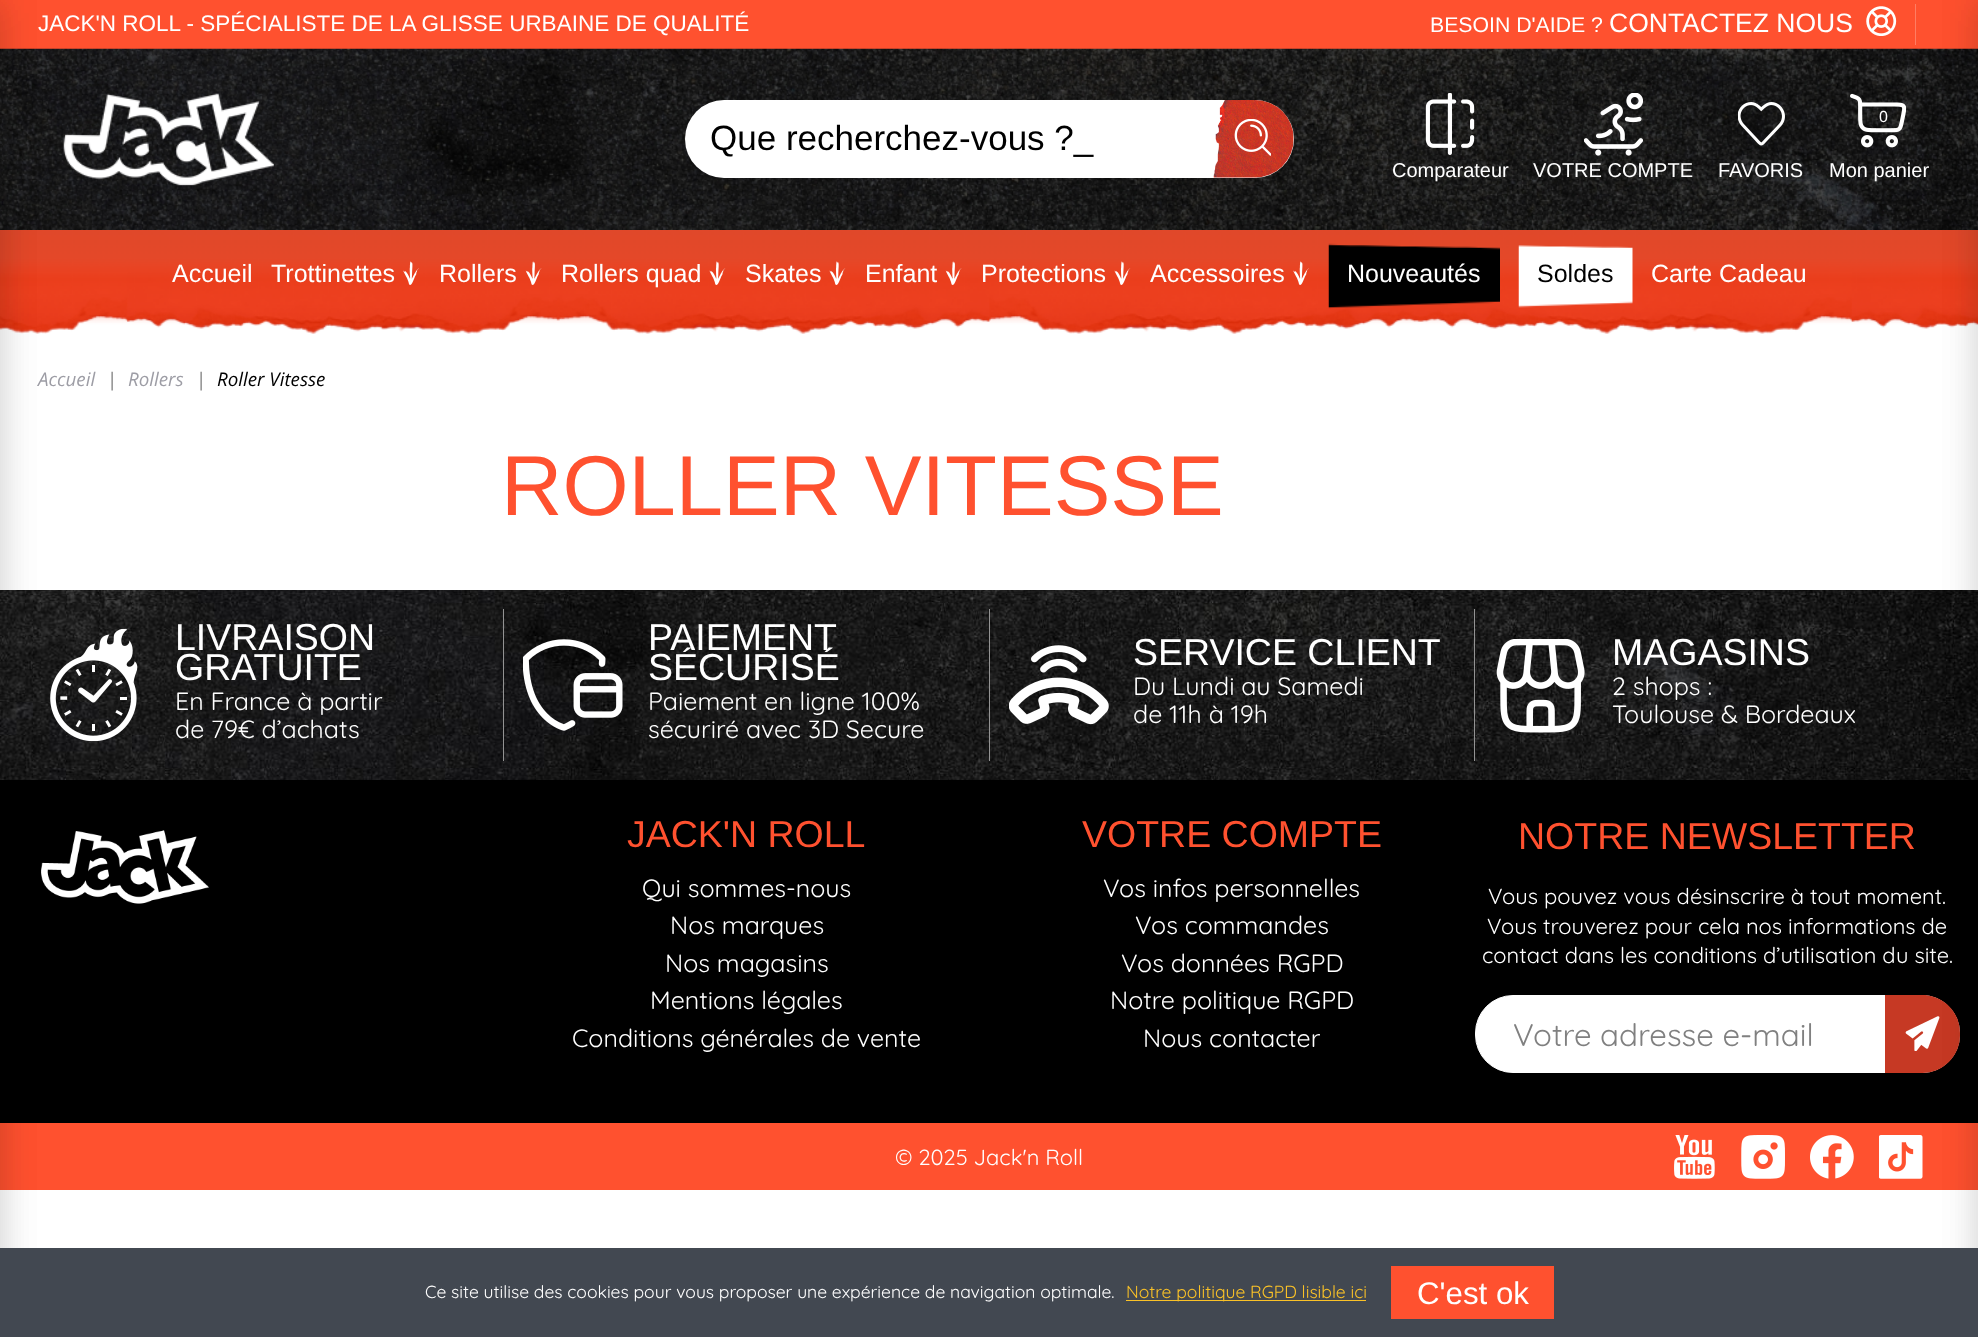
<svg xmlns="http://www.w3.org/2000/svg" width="1978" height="1337">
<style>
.a{font:22.5px Liberation Sans;fill:#fff}
.b{font:21.25px Liberation Sans;fill:#fff}
.c{font:26.5px Liberation Sans;fill:#fff}
.d{font:35px Liberation Sans;fill:#000}
.e{font:20px Liberation Sans;fill:#fff}
.f{font:16px Liberation Sans;fill:#fff}
.g{font:25px Liberation Sans;fill:#fff}
.h{font:25px Liberation Sans;fill:#000}
.i{font:italic 18.75px Open Sans;fill:#9d9da5}
.j{font:500 18.75px Open Sans;fill:#8e8e8e}
.k{font:italic 18.75px Open Sans;fill:#000}
.l{font:85px Liberation Sans;fill:#ff512f}
.m{font:37.5px Liberation Sans;fill:#fff}
.n{font:25px Quicksand;fill:#fff}
.o{font:37.5px Liberation Sans;fill:#ff512f}
.p{font:21.9px Quicksand;fill:#fff}
.q{font:31.25px Quicksand;fill:#808080}
.r{font:17.5px Quicksand;fill:#fff}
.s{font:17.5px Quicksand;fill:#fbc227}
.t{font:31.25px Liberation Sans;fill:#fff}
</style>
<rect width="100%" height="100%" fill="#fff"/>
<path fill="#ff512f" d="M0 0h1978v49H0z"/>
<image href="2.png" x="0" y="48" width="1978" height="182"/>
<image href="10.png" x="0" y="230" width="1978" height="104"/>
<image href="20.png" x="0" y="590" width="1978" height="190"/>
<image href="21.png" x="50" y="629" width="88" height="112"/>
<path fill="#000" d="M0 780h1978v343H0z"/>
<image href="25.png" x="41" y="830" width="168" height="74"/>
<path fill="#ff512f" d="M0 1123h1978v67H0z"/>
<path fill="#0000001a" filter="blur(19px)" d="M-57 0h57v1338H-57z"/>
<path fill="#0000001a" filter="blur(19px)" d="M-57 0h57v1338H-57z"/>
<rect fill="#fff" stroke="#fff" x="1475.5" y="995.5" width="484" height="77" rx="37.5"/>
<path fill="#c63924" d="M1885 995h37.5c20.5 0 37.5 17 37.5 37.5v3c0 20.5-17 37.5-37.5 37.5h-37.5z"/>
<image href="26.png" x="1905" y="1016" width="35" height="35"/>
<image href="30.png" x="1879" y="1135" width="44" height="44"/>
<path fill="#0000001a" filter="blur(19px)" d="M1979 0h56v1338H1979z"/>
<path fill="#0000001a" filter="blur(19px)" d="M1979 0h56v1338H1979z"/>
<path fill="#ff7d63" d="M1915 4h1v41H1915z"/>
<image href="1.png" x="1866" y="6" width="31" height="30"/>
<image href="3.png" x="63" y="93" width="211" height="93"/>
<rect fill="#fff" x="685" y="100" width="609" height="78" rx="39"/>
<image href="4.png" x="1213" y="100" width="81" height="78"/>
<image href="5.png" x="1234" y="119" width="37" height="37"/>
<image href="6.png" x="1425" y="93" width="50" height="62"/>
<image href="7.png" x="1584" y="93" width="59" height="63"/>
<image href="8.png" x="1738" y="102" width="47" height="44"/>
<image href="9.png" x="1850" y="93" width="56" height="55"/>
<image href="11.png" x="403" y="261" width="16" height="24"/>
<image href="12.png" x="525" y="261" width="17" height="24"/>
<image href="13.png" x="709" y="261" width="17" height="24"/>
<image href="14.png" x="829" y="261" width="17" height="24"/>
<image href="15.png" x="945" y="261" width="17" height="24"/>
<image href="16.png" x="1114" y="261" width="17" height="24"/>
<image href="17.png" x="1293" y="261" width="16" height="24"/>
<image href="18.png" x="1328" y="243" width="172" height="66"/>
<image href="19.png" x="1518" y="245" width="115" height="63"/>
<path fill="#939393" d="M503 609h1v152H503z"/>
<path fill="#939393" d="M989 609h1v152H989z"/>
<image href="22.png" x="523" y="639" width="100" height="92"/>
<path fill="#939393" d="M1474 609h1v152H1474z"/>
<image href="23.png" x="1009" y="645" width="100" height="80"/>
<image href="24.png" x="1496" y="639" width="89" height="94"/>
<image href="27.png" x="1674" y="1135" width="41" height="44"/>
<image href="28.png" x="1741" y="1135" width="44" height="44"/>
<image href="29.png" x="1810" y="1135" width="44" height="44"/>
<path fill="#424851" d="M0 1248h1978v89H0z"/>
<path fill="#fbc227" d="M1126 1300h240v1H1126z"/>
<path fill="#ff512f" d="M1391 1266h163v53H1391z"/>
<text class="a" x="38" y="31">JACK'N ROLL - SPÉCIALISTE DE LA GLISSE URBAINE DE QUALITÉ</text>
<text class="b" x="1430" y="32">BESOIN D'AIDE ?</text>
<text class="c" x="1609" y="32">CONTACTEZ NOUS</text>
<text class="d" x="710" y="150">Que recherchez-vous ?_</text>
<text class="e" x="1392" y="177">Comparateur</text>
<text class="e" x="1533" y="177">VOTRE COMPTE</text>
<text class="e" x="1718" y="177">FAVORIS</text>
<text class="f" x="1879" y="122">0</text>
<text class="e" x="1829" y="177">Mon panier</text>
<text class="g" x="172" y="282">Accueil</text>
<text class="g" x="271" y="282">Trottinettes</text>
<text class="g" x="439" y="282">Rollers</text>
<text class="g" x="561" y="282">Rollers quad</text>
<text class="g" x="745" y="282">Skates</text>
<text class="g" x="865" y="282">Enfant</text>
<text class="g" x="981" y="282">Protections</text>
<text class="g" x="1150" y="282">Accessoires</text>
<text class="g" x="1347" y="282">Nouveautés</text>
<text class="h" x="1537" y="282">Soldes</text>
<text class="g" x="1651" y="282">Carte Cadeau</text>
<text class="i" x="38" y="386">Accueil</text>
<text class="j" x="107" y="386">|</text>
<text class="i" x="128" y="386">Rollers</text>
<text class="j" x="196" y="386">|</text>
<text class="k" x="217" y="386">Roller Vitesse</text>
<text class="l" x="501" y="515">ROLLER VITESSE</text>
<text class="m" x="175" y="650">LIVRAISON</text>
<text class="m" x="175" y="680">GRATUITE</text>
<text class="n" x="175" y="710">En France à partir</text>
<text class="n" x="175" y="738">de 79€ d’achats</text>
<text class="m" x="648" y="650">PAIEMENT</text>
<text class="m" x="648" y="680">SÉCURISÉ</text>
<text class="n" x="648" y="710">Paiement en ligne 100%</text>
<text class="n" x="648" y="738">sécuriré avec 3D Secure</text>
<text class="m" x="1133" y="665">SERVICE CLIENT</text>
<text class="n" x="1133" y="695">Du Lundi au Samedi</text>
<text class="n" x="1133" y="723">de 11h à 19h</text>
<text class="m" x="1612" y="665">MAGASINS</text>
<text class="n" x="1612" y="695">2 shops :</text>
<text class="n" x="1612" y="723">Toulouse &amp; Bordeaux</text>
<text class="o" x="627" y="847">JACK'N ROLL</text>
<text class="n" x="642" y="897">Qui sommes-nous</text>
<text class="n" x="670" y="934">Nos marques</text>
<text class="n" x="665" y="972">Nos magasins</text>
<text class="n" x="650" y="1009">Mentions légales</text>
<text class="n" x="572" y="1047">Conditions générales de vente</text>
<text class="o" x="1082" y="847">VOTRE COMPTE</text>
<text class="n" x="1103" y="897">Vos infos personnelles</text>
<text class="n" x="1135" y="934">Vos commandes</text>
<text class="n" x="1121" y="972">Vos données RGPD</text>
<text class="n" x="1110" y="1009">Notre politique RGPD</text>
<text class="n" x="1143" y="1047">Nous contacter</text>
<text class="o" x="1518" y="849">NOTRE NEWSLETTER</text>
<text class="p" x="1488" y="904">Vous pouvez vous désinscrire à tout moment.</text>
<text class="p" x="1487" y="934">Vous trouverez pour cela nos informations de</text>
<text class="p" x="1482" y="963">contact dans les conditions d’utilisation du site.</text>
<text class="q" x="1513" y="1046">Votre adresse e-mail</text>
<text class="p" x="895" y="1165">© 2025 Jack'n Roll</text>
<text class="r" x="425" y="1298">Ce site utilise des cookies pour vous proposer une expérience de navigation optimale.</text>
<text class="s" x="1126" y="1298">Notre politique RGPD lisible ici</text>
<text class="t" x="1417" y="1304">C'est ok</text>
</svg>
